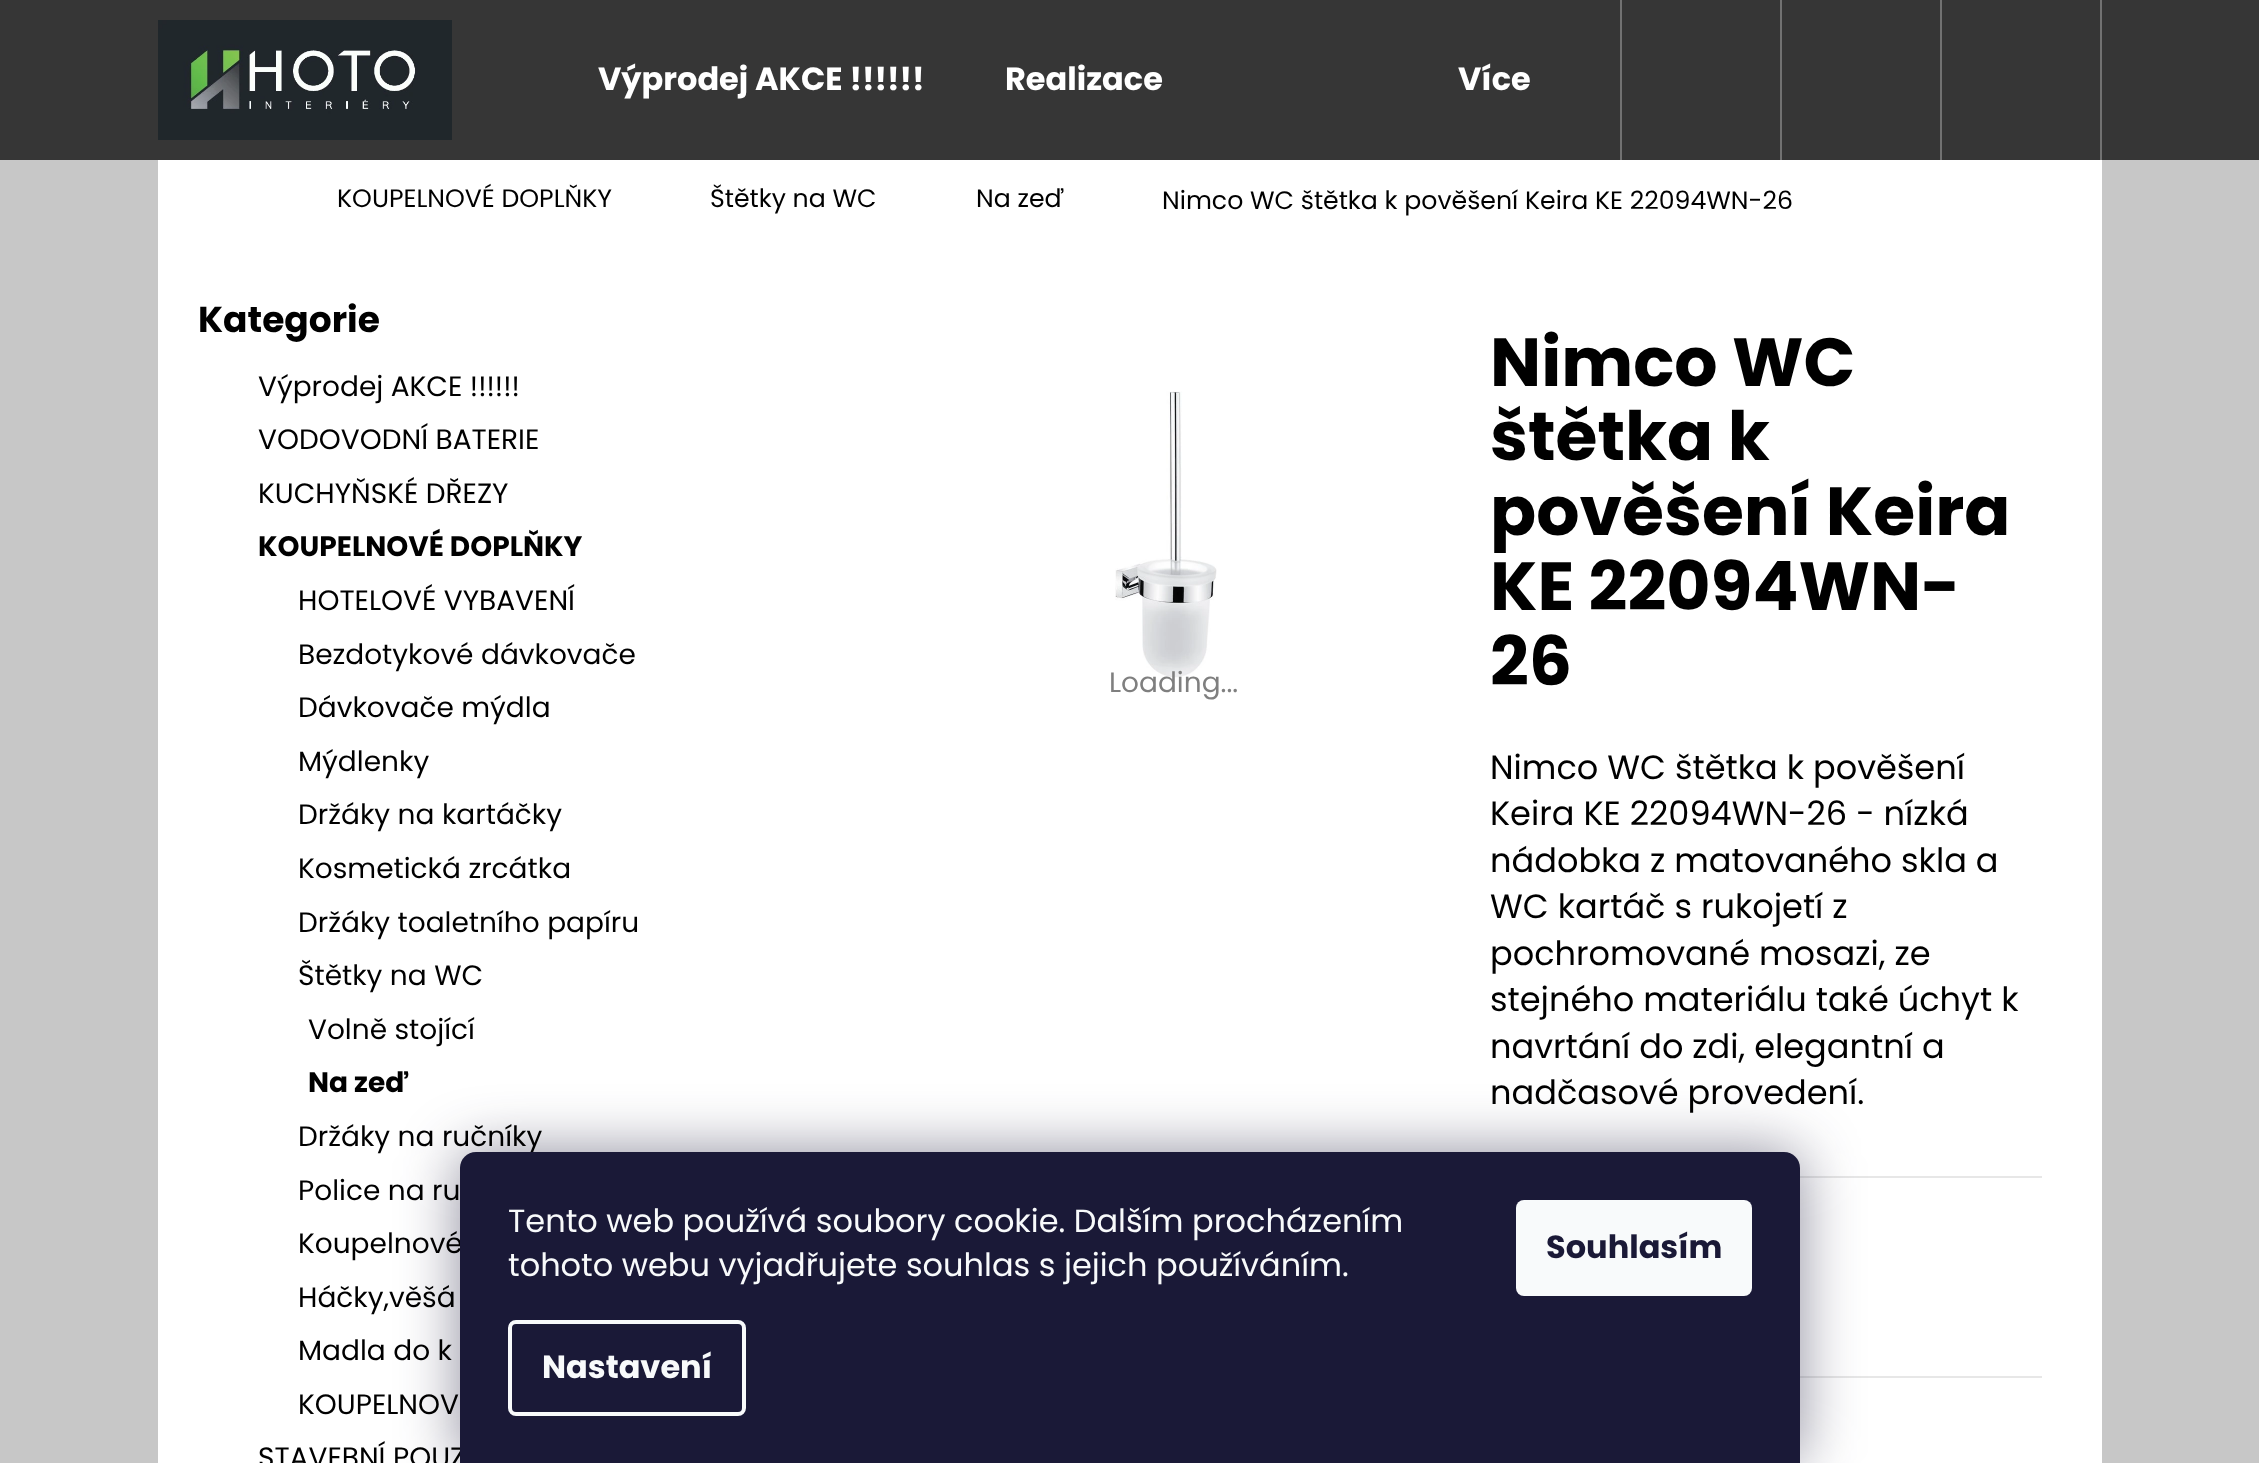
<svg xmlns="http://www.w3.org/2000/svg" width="2259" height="1463">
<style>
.a{font:bold 32px Poppins;fill:#fff}
.b{font:25.2px Poppins;fill:#000}
.c{font:bold 36px Poppins;fill:#000}
.d{font:28px Poppins;fill:#000}
.e{font:bold 28px Poppins;fill:#000}
.f{font:28px Poppins;fill:#7f7f7f}
.g{font:bold 68px Poppins;fill:#000}
.h{font:33.6px Poppins;fill:#000}
.i{font:32px Poppins;fill:#f8fafb}
.j{font:bold 32px Poppins;fill:#f8fafb}
.k{font:bold 32px Poppins;fill:#1a1937}
</style>
<rect width="100%" height="100%" fill="#c7c7c7"/>
<path fill="#363636" d="M0 0h2259v160H0z"/>
<image href="1.png" x="158" y="20" width="294" height="120"/>
<path fill="#727272" d="M2100 0h2v160H2100z"/>
<path fill="#727272" d="M1620 0h2v160H1620z"/>
<path fill="#727272" d="M1780 0h2v160H1780z"/>
<path fill="#727272" d="M1940 0h2v160H1940z"/>
<path fill="#fff" d="M158 160h1944v1303H158z"/>
<image href="2.png" x="1115" y="391" width="102" height="287"/>
<path fill="#e7e7e7" d="M1800 1176h242v2H1800z"/>
<path fill="#e7e7e7" d="M1800 1376h242v2H1800z"/>
<rect fill="#1b193980" filter="blur(30px)" x="460" y="1152" width="1340" height="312" rx="16"/>
<text class="a" x="598" y="90">Výprodej AKCE !!!!!!</text>
<text class="a" x="1005" y="90">Realizace</text>
<text class="a" x="1458" y="90">Více</text>
<text class="b" x="337" y="207">KOUPELNOVÉ DOPLŇKY</text>
<text class="b" x="710" y="207">Štětky na WC</text>
<text class="b" x="976" y="207">Na zeď</text>
<text class="b" x="1162" y="209">Nimco WC štětka k pověšení Keira KE 22094WN-26</text>
<text class="c" x="198" y="332">Kategorie</text>
<text class="d" x="258" y="396">Výprodej AKCE !!!!!!</text>
<text class="d" x="258" y="449">VODOVODNÍ BATERIE</text>
<text class="d" x="258" y="503">KUCHYŇSKÉ DŘEZY</text>
<text class="e" x="258" y="556">KOUPELNOVÉ DOPLŇKY</text>
<text class="d" x="298" y="610">HOTELOVÉ VYBAVENÍ</text>
<text class="d" x="298" y="664">Bezdotykové dávkovače</text>
<text class="d" x="298" y="717">Dávkovače mýdla</text>
<text class="d" x="298" y="771">Mýdlenky</text>
<text class="d" x="298" y="824">Držáky na kartáčky</text>
<text class="d" x="298" y="878">Kosmetická zrcátka</text>
<text class="d" x="298" y="932">Držáky toaletního papíru</text>
<text class="d" x="298" y="985">Štětky na WC</text>
<text class="d" x="308" y="1039">Volně stojící</text>
<text class="e" x="308" y="1092">Na zeď</text>
<text class="d" x="298" y="1146">Držáky na ručníky</text>
<text class="d" x="298" y="1200">Police na ru</text>
<text class="d" x="298" y="1253">Koupelnové</text>
<text class="d" x="298" y="1307">Háčky,věšá</text>
<text class="d" x="298" y="1360">Madla do k</text>
<text class="d" x="298" y="1414">KOUPELNOV</text>
<text class="d" x="258" y="1467">STAVEBNÍ POUZ</text>
<text class="f" x="1109" y="692">Loading...</text>
<text class="g" x="1490" y="386">Nimco WC</text>
<text class="g" x="1490" y="460">štětka k</text>
<text class="g" x="1490" y="535">pověšení Keira</text>
<text class="g" x="1490" y="610">KE 22094WN-</text>
<text class="g" x="1490" y="685">26</text>
<text class="h" x="1490" y="779">Nimco WC štětka k pověšení</text>
<text class="h" x="1490" y="825">Keira KE 22094WN-26 - nízká</text>
<text class="h" x="1490" y="872">nádobka z matovaného skla a</text>
<text class="h" x="1490" y="918">WC kartáč s rukojetí z</text>
<text class="h" x="1490" y="965">pochromované mosazi, ze</text>
<text class="h" x="1490" y="1011">stejného materiálu také úchyt k</text>
<text class="h" x="1490" y="1058">navrtání do zdi, elegantní a</text>
<text class="h" x="1490" y="1104">nadčasové provedení.</text>
<path fill="#1a1937" d="M476 1152h1308c9 0 16 7 16 16v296h-1340v-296c0-9 7-16 16-16z"/>
<text class="i" x="508" y="1232">Tento web používá soubory cookie. Dalším procházením</text>
<text class="i" x="508" y="1276">tohoto webu vyjadřujete souhlas s jejich používáním.</text>
<rect fill="none" stroke="#f8fafb" stroke-width="4" x="510" y="1322" width="234" height="92" rx="6"/>
<text class="j" x="542" y="1378">Nastavení</text>
<rect fill="#f8fafb" x="1516" y="1200" width="236" height="96" rx="8"/>
<text class="k" x="1546" y="1258">Souhlasím</text>
</svg>
